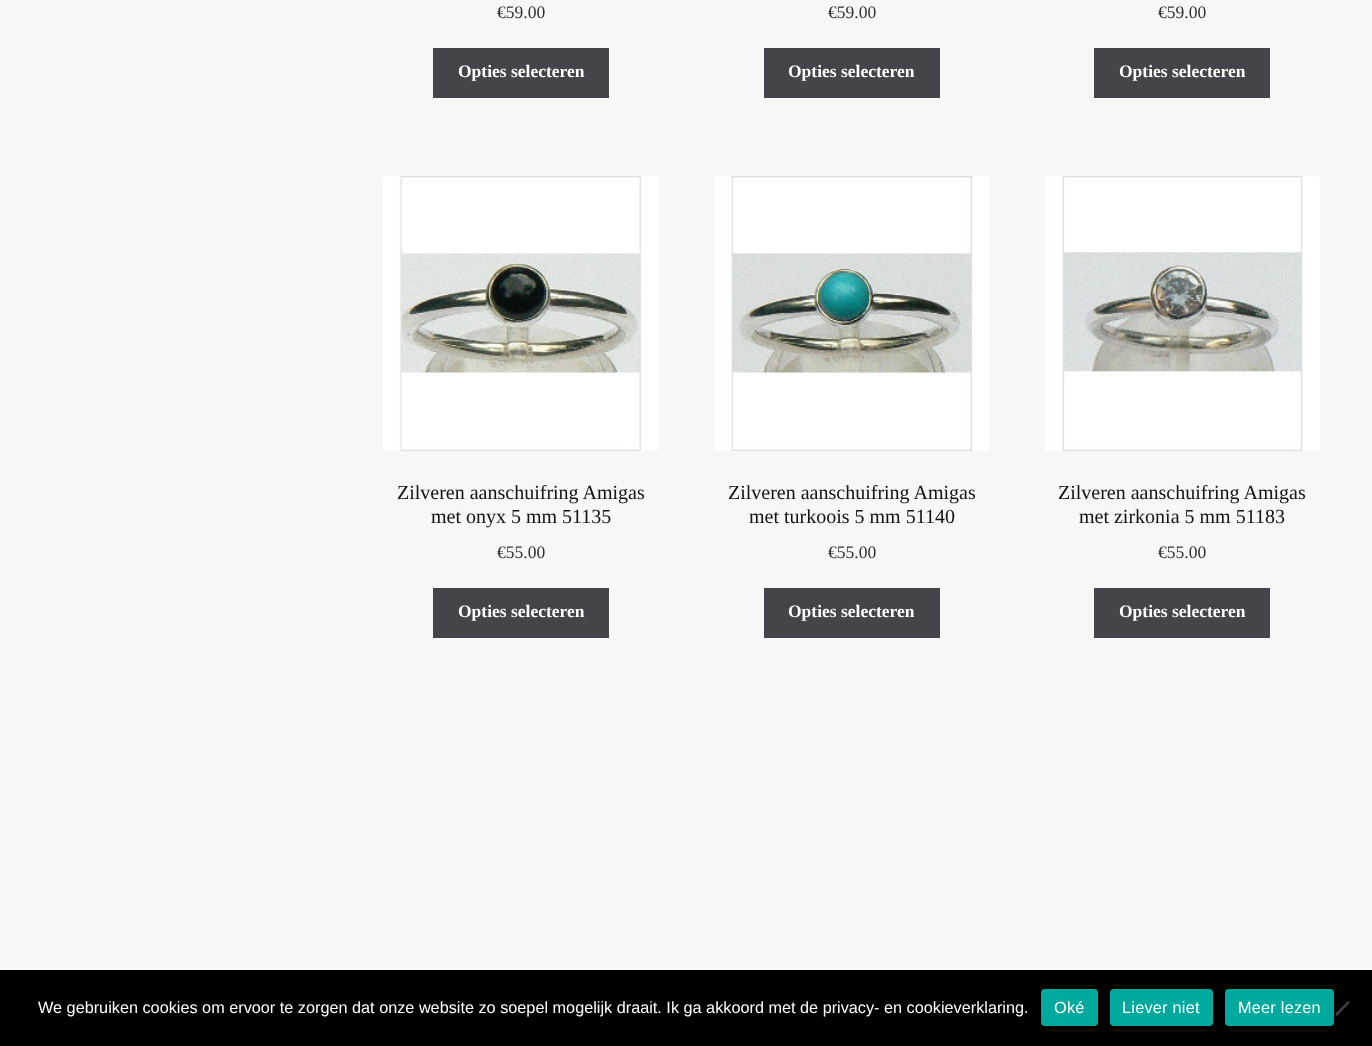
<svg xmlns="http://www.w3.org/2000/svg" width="1372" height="1046">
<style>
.a{font:17.5px Liberation Serif;fill:#303030}
.b{font:bold 17.5px Liberation Serif;fill:#fff}
.c{font:20px Liberation Serif;fill:#131315}
.d{font:16.25px Liberation Sans;fill:#fff}
.e{font:16.25px Liberation Sans;letter-spacing:0.25px;fill:#fff}
</style>
<rect width="100%" height="100%" fill="#f7f7f7"/>
<path fill="#43454b" d="M433 48h176v50H433z"/>
<path fill="#43454b" d="M764 48h176v50H764z"/>
<path fill="#43454b" d="M1094 48h176v50H1094z"/>
<image href="1.png" x="383" y="176" width="276" height="275"/>
<path fill="#43454b" d="M433 588h176v50H433z"/>
<image href="2.png" x="714" y="176" width="276" height="275"/>
<path fill="#43454b" d="M764 588h176v50H764z"/>
<image href="3.png" x="1045" y="176" width="275" height="275"/>
<path fill="#43454b" d="M1094 588h176v50H1094z"/>
<path fill="#000" d="M0 970h1372v76H0z"/>
<rect fill="#00a99d" x="1041" y="989" width="57" height="37" rx="4"/>
<rect fill="#00a99d" x="1110" y="989" width="103" height="37" rx="4"/>
<rect fill="#00a99d" x="1225" y="989" width="109" height="37" rx="4"/>
<path fill="#404040" d="M1348 1001l2 1.5l-13 13.5l-2-2z"/>
<text class="a" x="497" y="18">€59.00</text>
<text class="b" x="458" y="77">Opties selecteren</text>
<text class="a" x="828" y="18">€59.00</text>
<text class="b" x="788" y="77">Opties selecteren</text>
<text class="a" x="1158" y="18">€59.00</text>
<text class="b" x="1119" y="77">Opties selecteren</text>
<text class="c" x="397" y="499">Zilveren aanschuifring Amigas</text>
<text class="c" x="431" y="523">met onyx 5 mm 51135</text>
<text class="a" x="497" y="558">€55.00</text>
<text class="b" x="458" y="617">Opties selecteren</text>
<text class="c" x="728" y="499">Zilveren aanschuifring Amigas</text>
<text class="c" x="749" y="523">met turkoois 5 mm 51140</text>
<text class="a" x="828" y="558">€55.00</text>
<text class="b" x="788" y="617">Opties selecteren</text>
<text class="c" x="1058" y="499">Zilveren aanschuifring Amigas</text>
<text class="c" x="1079" y="523">met zirkonia 5 mm 51183</text>
<text class="a" x="1158" y="558">€55.00</text>
<text class="b" x="1119" y="617">Opties selecteren</text>
<text class="d" x="38" y="1013">We gebruiken cookies om ervoor te zorgen dat onze website zo soepel mogelijk draait. Ik ga akkoord met de privacy- en cookieverklaring.</text>
<text class="e" x="1054" y="1013">Oké</text>
<text class="e" x="1122" y="1013">Liever niet</text>
<text class="e" x="1238" y="1013">Meer lezen</text>
</svg>
